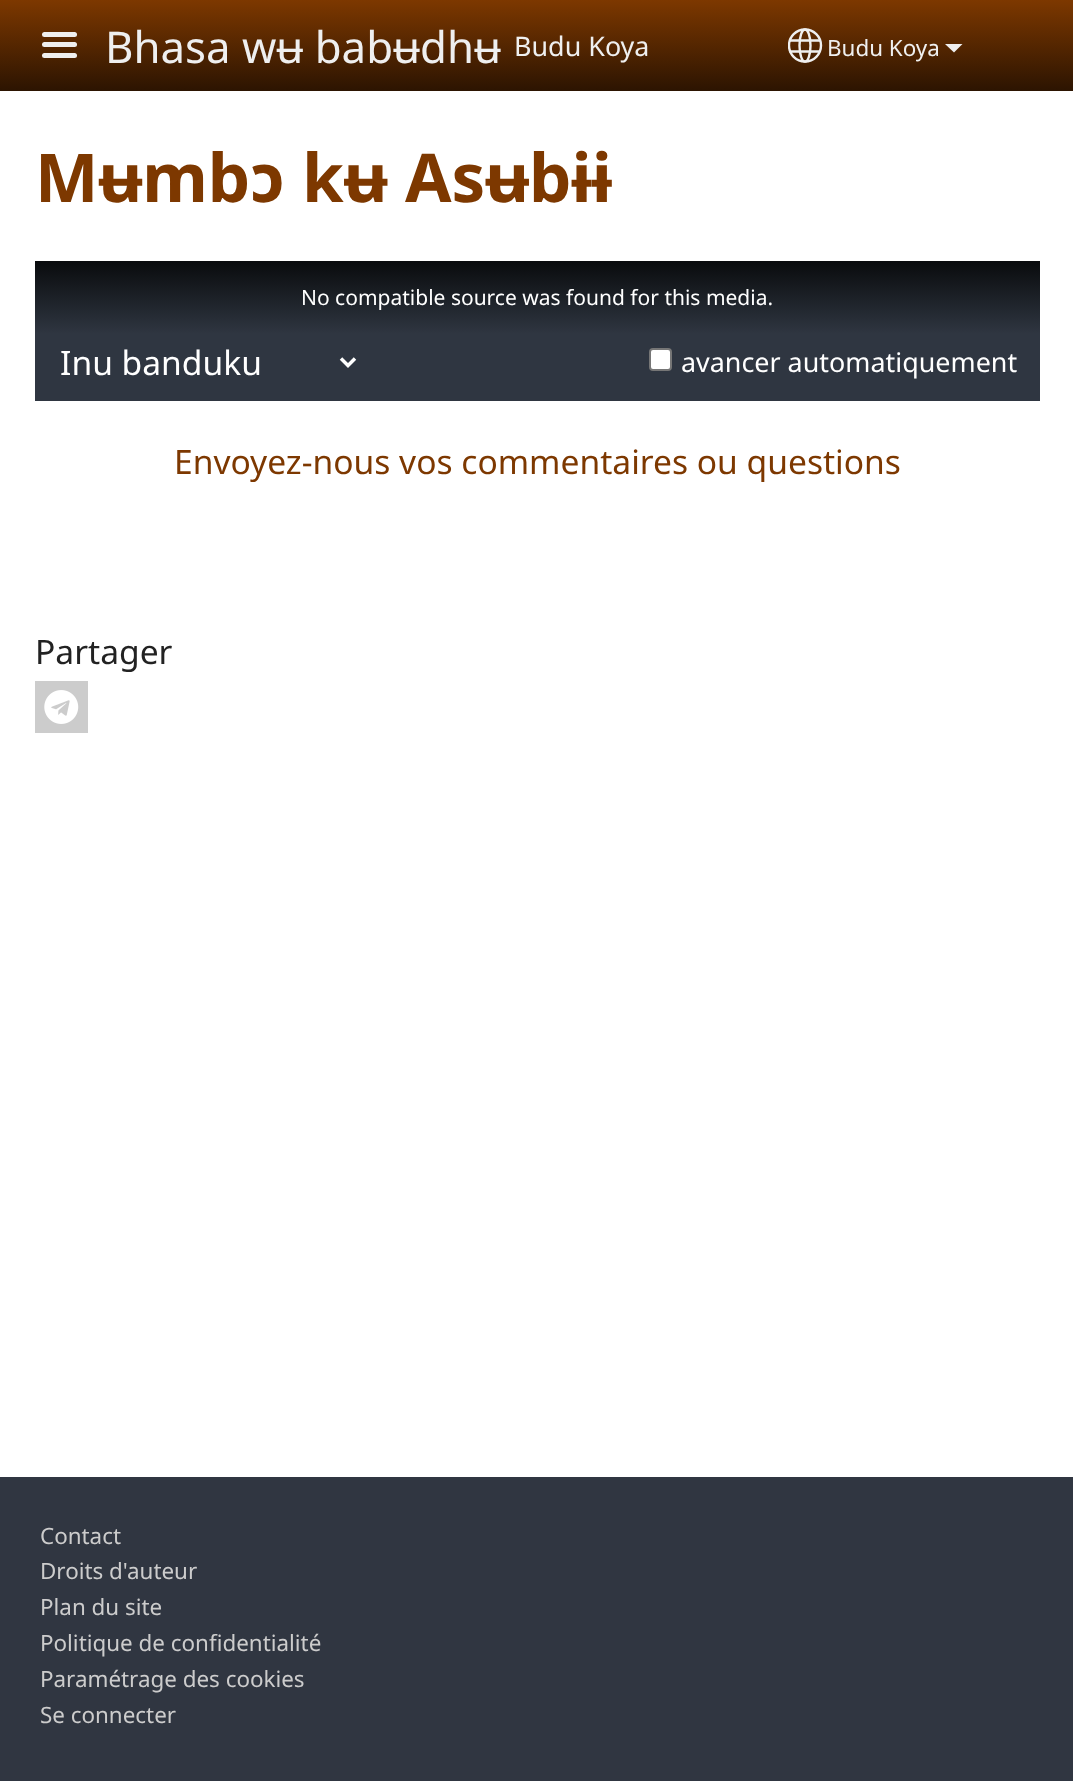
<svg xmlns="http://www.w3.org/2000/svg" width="1073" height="1781">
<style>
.a{font:43.75px Noto Sans;fill:#efefef}
.b{font:26.9px Noto Sans;fill:#efefef}
.c{font:22.4px Noto Sans;fill:#efefef}
.d{font:bold 67.25px Noto Sans;fill:#7d3800}
.e{font:21px Noto Sans;fill:#fff}
.f{font:33.6px Noto Sans;fill:#fff}
.g{font:26.9px Noto Sans;fill:#fff}
.h{font:33.6px Noto Sans;fill:#7d3800}
.i{font:33.6px Noto Sans;fill:#222}
.j{font:22.4px Noto Sans;fill:#ccc}
</style>
<defs>
<linearGradient id="g1" gradientUnits="userSpaceOnUse" x1="537" y1="0" x2="537" y2="91"><stop offset="0" stop-color="#7d3800"/><stop offset="1" stop-color="#2c1401"/></linearGradient>
<clipPath id="clip1"><path d="M788 18h35v45H788z"/></clipPath>
<linearGradient id="g2" gradientUnits="userSpaceOnUse" x1="537" y1="261" x2="537" y2="334"><stop offset="0" stop-color="#090b0d"/><stop offset="1" stop-color="#2f3641"/></linearGradient>
</defs>
<rect width="100%" height="100%" fill="#fff"/>
<path fill="url(#g1)" d="M0 0h1073v91H0z"/>
<rect fill="#efefef" x="42" y="32" width="35" height="5" rx="2.5"/>
<rect fill="#efefef" x="42" y="42" width="35" height="5" rx="2.5"/>
<rect fill="#efefef" x="42" y="53" width="35" height="5" rx="2.5"/>
<g clip-path="url(#clip1)">
<circle fill="none" stroke="#efefef" stroke-width="2.4" cx="805" cy="45.5" r="16"/>
</g>
<ellipse fill="none" stroke="#efefef" stroke-width="2.4" cx="805" cy="45.5" rx="5.5" ry="16"/>
<path fill="none" stroke="#efefef" stroke-width="2.4" d="M789.5 51.5h30.5m-30.5-11h30.5"/>
<path fill="#efefef" d="M945 44h17.5l-8.5 8.5z"/>
<path fill="#2f3641" d="M35 334h1005v67H35z"/>
<path fill="url(#g2)" d="M35 261h1005v73H35z"/>
<path fill="none" stroke="#fff" stroke-width="3.5" d="M341 358.5l7 7l7-7"/>
<rect fill="#fff" stroke="#767676" stroke-width="2" x="650" y="349" width="21" height="21" rx="3"/>
<path fill="#ccc" d="M35 681h53v52H35z"/>
<image href="1.png" x="44" y="690" width="35" height="34"/>
<path fill="#303641" d="M0 1477h1073v304H0z"/>
<text class="a" x="105" y="63">Bhasa wʉ babʉdhʉ</text>
<text class="b" x="514" y="56">Budu Koya</text>
<text class="c" x="827" y="56">Budu Koya</text>
<text class="d" x="35" y="202">Mʉmbɔ kʉ Asʉbɨɨ</text>
<text class="e" x="301" y="305">No compatible source was found for this media.</text>
<text class="f" x="60" y="375">Inu banduku</text>
<text class="g" x="681" y="372">avancer automatiquement</text>
<text class="h" x="174" y="474">Envoyez-nous vos commentaires ou questions</text>
<text class="i" x="35" y="664">Partager</text>
<text class="j" x="40" y="1544">Contact</text>
<text class="j" x="40" y="1579">Droits d'auteur</text>
<text class="j" x="40" y="1615">Plan du site</text>
<text class="j" x="40" y="1651">Politique de confidentialité</text>
<text class="j" x="40" y="1687">Paramétrage des cookies</text>
<text class="j" x="40" y="1723">Se connecter</text>
</svg>
